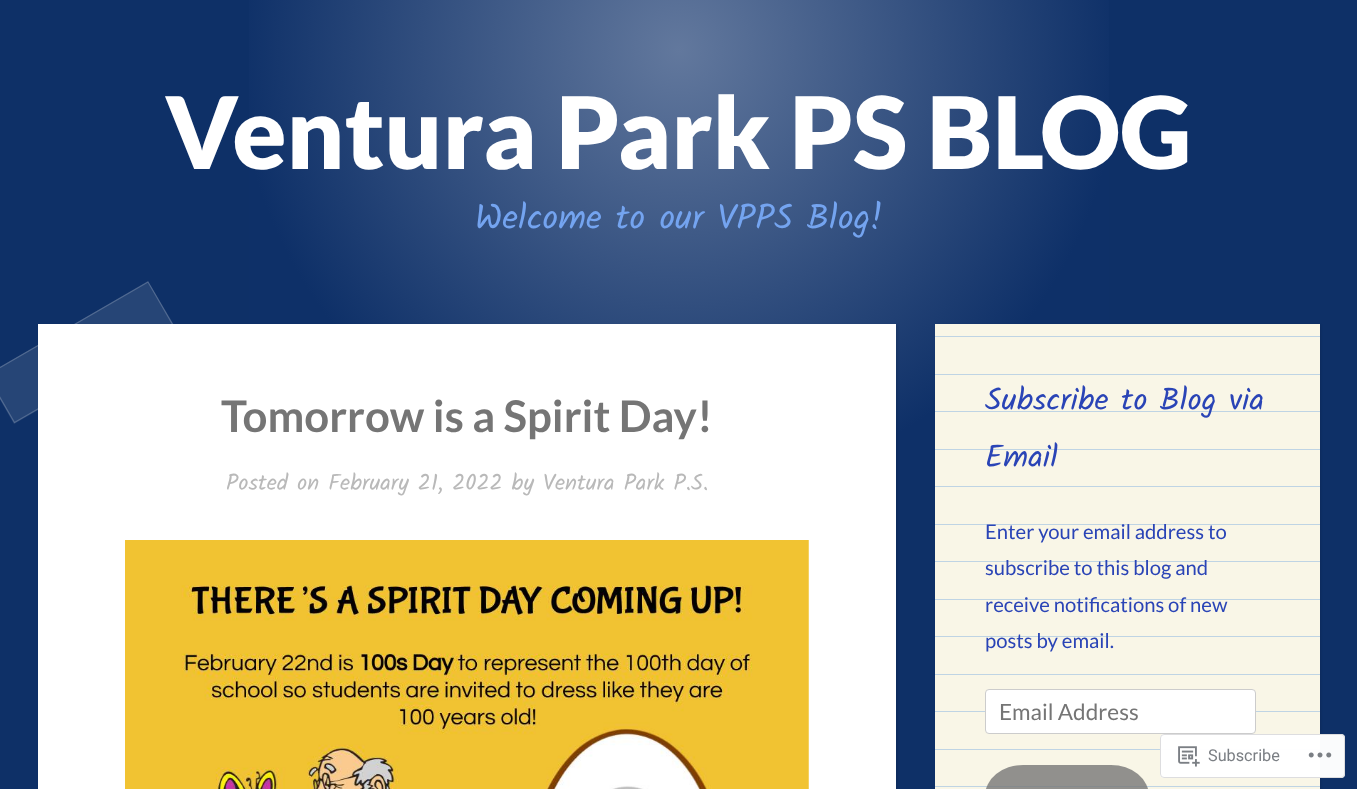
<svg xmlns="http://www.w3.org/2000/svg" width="1357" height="789">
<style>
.a{font:900 100px Lato;fill:#fff}
.b{font:35px Kalam;fill:#74a4f0}
.c{font:bold 43.75px Lato;fill:#757575}
.d{font:22.5px Kalam;fill:#b9b9b9}
.e{font:31.25px Kalam;fill:#2a44b6}
.f{font:20.25px Lato;fill:#2a44b6}
.g{font:22.5px Lato;fill:#757575}
.h{font:16.25px Roboto;fill:#7b7f84}
</style>
<defs>
<radialGradient id="g1" gradientUnits="userSpaceOnUse" cx="679" cy="50" r="884"><stop offset="0" stop-color="#62789d"/><stop offset="0.5" stop-color="#0e3068"/><stop offset="1" stop-color="#0e3068"/></radialGradient>
</defs>
<rect width="100%" height="100%" fill="#0e3067"/>
<path fill="url(#g1)" d="M249 0h860v480H249z"/>
<path fill="#0000001a" filter="blur(1px)" d="M39 325h859v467H39z"/>
<path fill="#fff" d="M38 324h858v465H38z"/>
<path fill="#ffffff1a" d="M-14 375l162-94l29 49l-163 94z"/>
<path fill="none" stroke="#ffffff33" stroke-width="1.2" d="M-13 375l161-93l27.5 47.5l-161 93z"/>
<image href="1.png" x="125" y="540" width="684" height="249"/>
<path fill="#0000001a" filter="blur(1px)" d="M936 325h385v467H936z"/>
<path fill="#f9f6e7" d="M935 324h385v465H935z"/>
<path fill="#bfd4e4" d="M935 336h385v1H935z"/>
<path fill="#bfd4e4" d="M935 374h385v1H935z"/>
<path fill="#bfd4e4" d="M935 411h385v1H935z"/>
<path fill="#bfd4e4" d="M935 449h385v1H935z"/>
<path fill="#bfd4e4" d="M935 486h385v1H935z"/>
<path fill="#bfd4e4" d="M935 524h385v1H935z"/>
<path fill="#bfd4e4" d="M935 561h385v1H935z"/>
<path fill="#bfd4e4" d="M935 599h385v1H935z"/>
<path fill="#bfd4e4" d="M935 636h385v1H935z"/>
<path fill="#bfd4e4" d="M935 674h385v1H935z"/>
<path fill="#bfd4e4" d="M935 711h385v1H935z"/>
<path fill="#bfd4e4" d="M935 749h385v1H935z"/>
<path fill="#bfd4e4" d="M935 786h385v1H935z"/>
<rect fill="#fff" stroke="#ccc" x="985.5" y="689.5" width="270" height="44" rx="3.5"/>
<rect fill="#777777cc" x="985" y="765" width="164" height="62" rx="38"/>
<rect fill="#fffffffa" x="1160" y="734" width="185" height="44" rx="4"/>
<rect fill="none" stroke="#dcdcdefa" x="1160.5" y="734.5" width="184" height="43" rx="3.5"/>
<image href="2.png" x="1178" y="746" width="22" height="21"/>
<image href="3.png" x="1308" y="752" width="24" height="6"/>
<text class="a" x="165" y="169">Ventura Park PS BLOG</text>
<text class="b" x="475" y="229">Welcome to our VPPS Blog!</text>
<text class="c" x="221" y="432">Tomorrow is a Spirit Day!</text>
<text class="d" x="226" y="490">Posted on February 21, 2022 by Ventura Park P.S.</text>
<text class="e" x="985" y="410">Subscribe to Blog via</text>
<text class="e" x="985" y="467">Email</text>
<text class="f" x="985" y="539">Enter your email address to</text>
<text class="f" x="985" y="575">subscribe to this blog and</text>
<text class="f" x="985" y="612">receive notifications of new</text>
<text class="f" x="985" y="648">posts by email.</text>
<text class="g" x="999" y="720">Email Address</text>
<text class="h" x="1208" y="761">Subscribe</text>
</svg>
